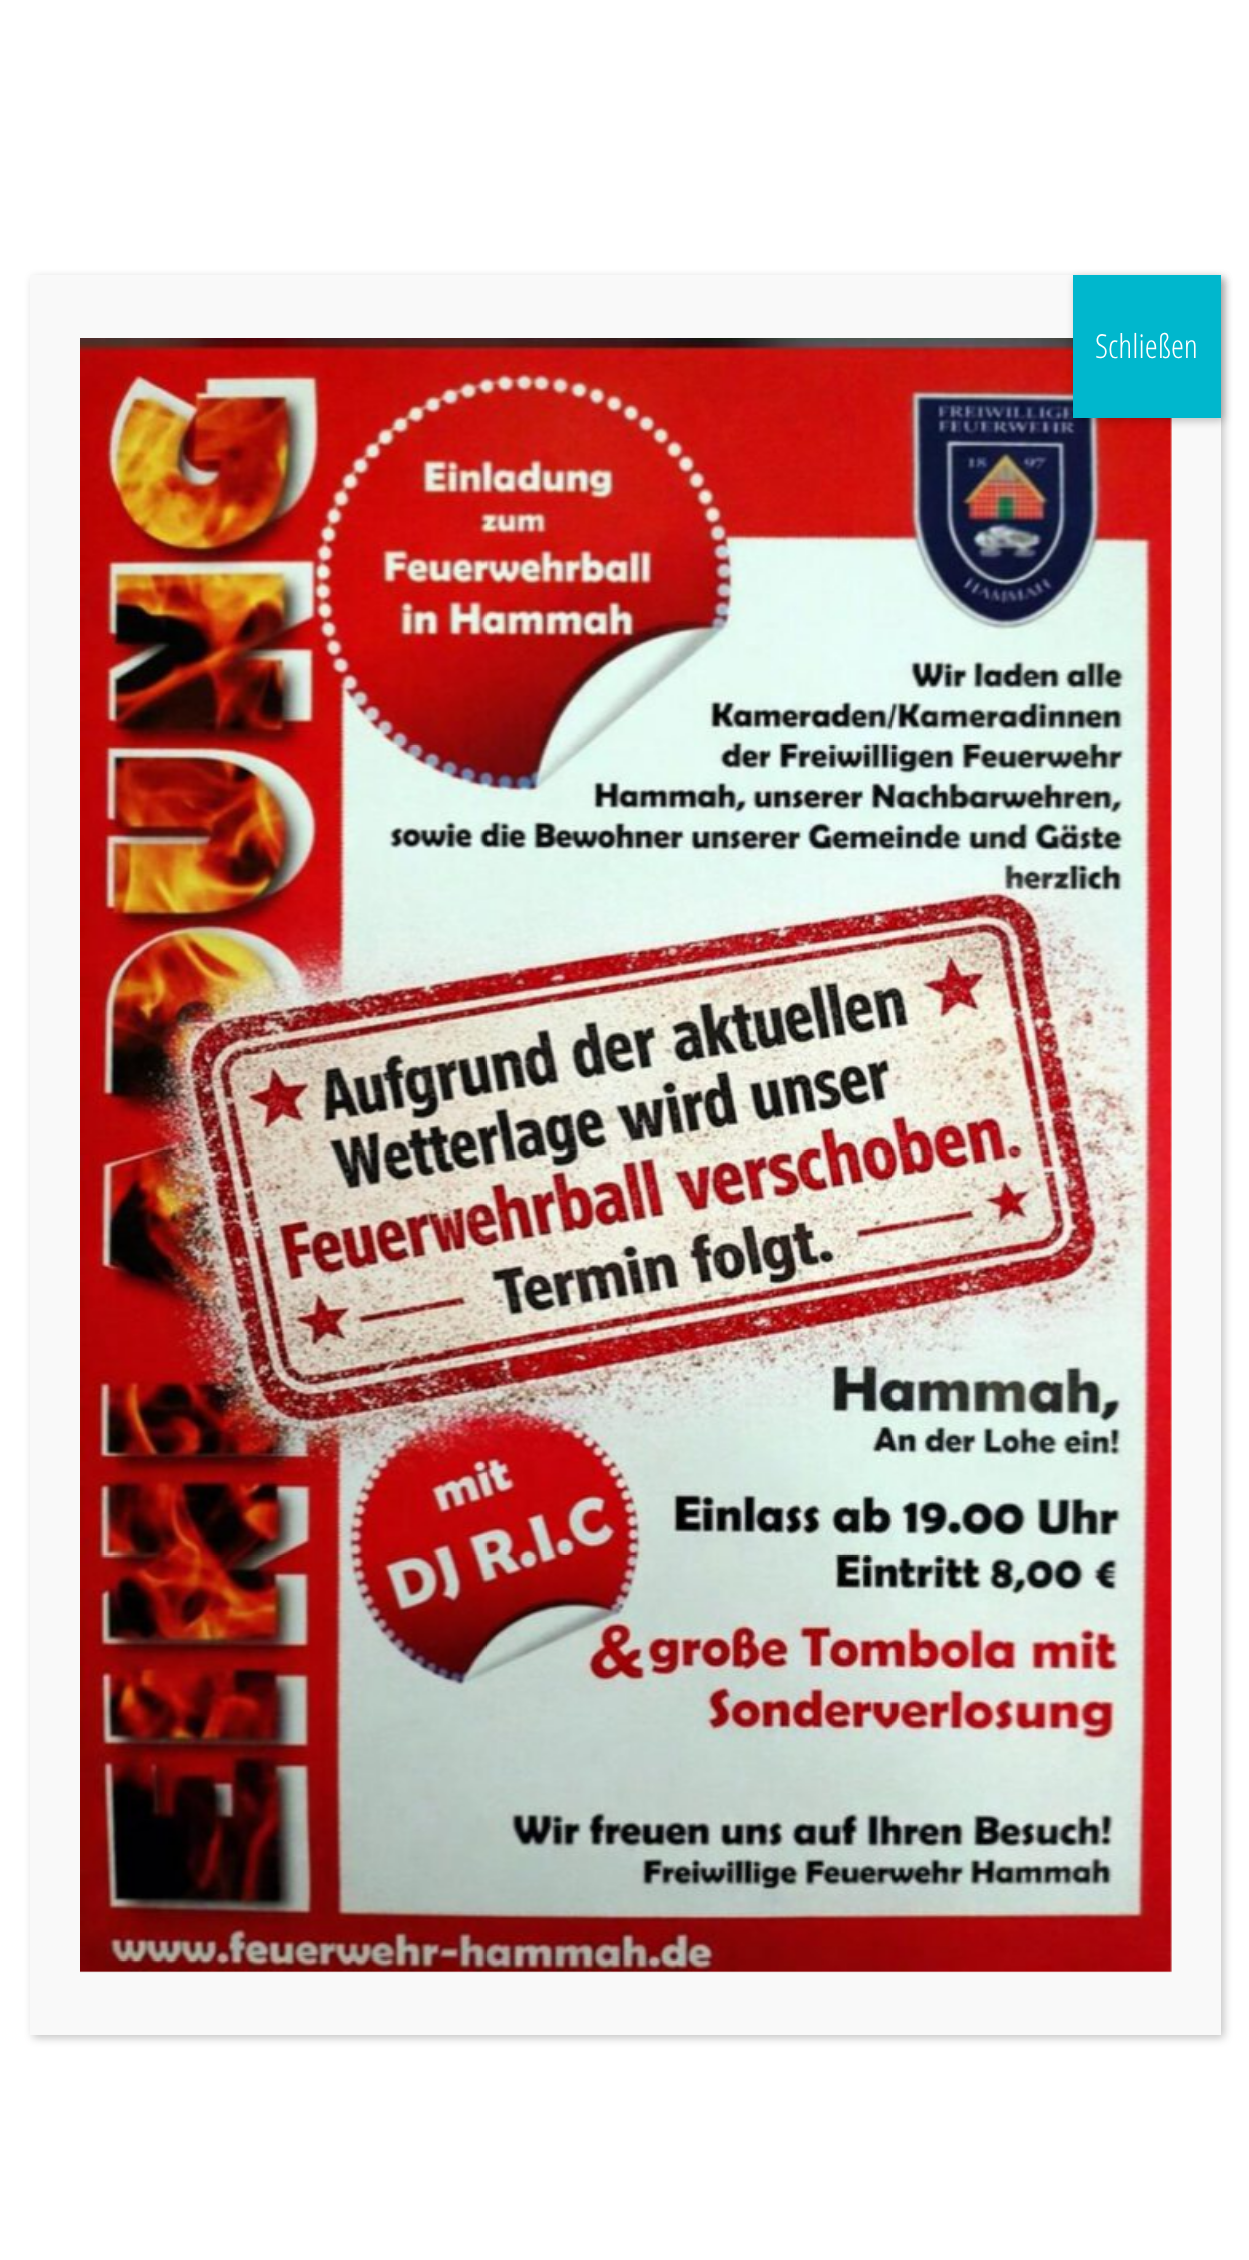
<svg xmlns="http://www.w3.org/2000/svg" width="1249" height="2260">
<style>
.a{font:300 33px Open Sans Condensed;fill:#fff}
</style>
<rect width="100%" height="100%" fill="#fff"/>
<path fill="#0202023b" filter="blur(4px)" d="M33 278h1191v1760H33z"/>
<path fill="#f9f9f9" d="M30 275h1191v1760H30z"/>
<image href="1.png" x="80" y="338" width="1092" height="1635"/>
<path fill="#0202023b" filter="blur(4px)" d="M1075 278h149v143H1075z"/>
<path fill="#00b7cd" d="M1073 275h148v143H1073z"/>
<text class="a" x="1095" y="358">Schließen</text>
</svg>
